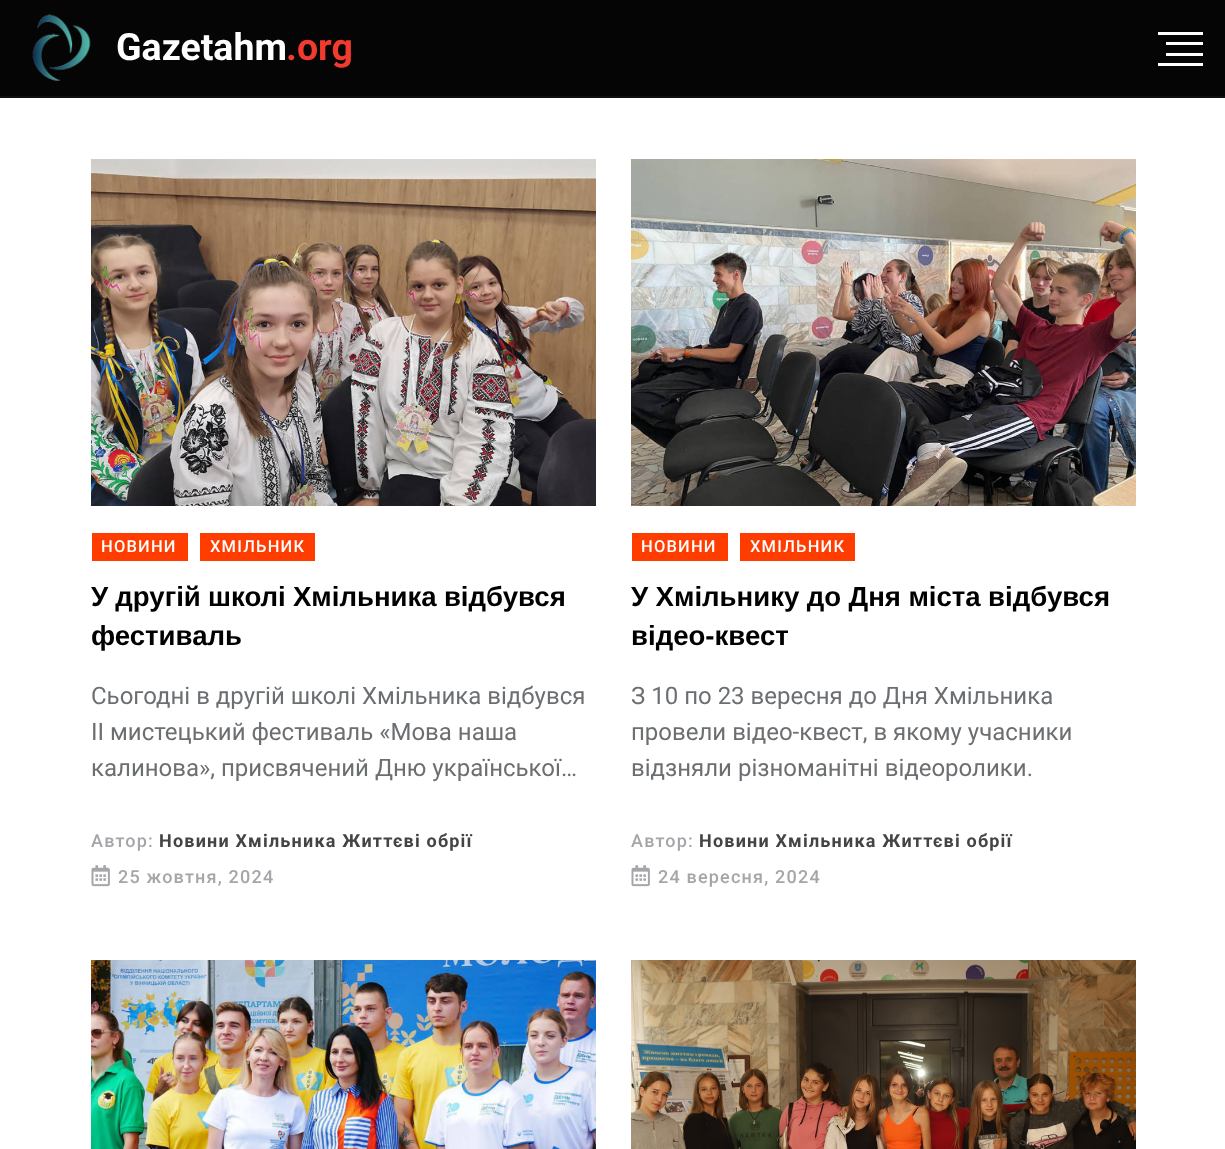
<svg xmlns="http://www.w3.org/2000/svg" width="1225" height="1149">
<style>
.a{font:bold 37.5px Roboto;fill:#fff}
.b{font:bold 37.5px Roboto;fill:#f23a2e}
.c{font:500 16.5px Roboto;letter-spacing:1.2px;fill:#fff}
.d{font:bold 27.6px Liberation Sans;fill:#000}
.e{font:24px Roboto;fill:#6c6f72}
.f{font:500 18px Roboto;letter-spacing:1.2px;fill:#a5a6aa}
.g{font:bold 18px Roboto;letter-spacing:1.2px;fill:#444}
</style>
<defs>
<clipPath id="clip1"><path d="M92 579h504v78H92z"/></clipPath>
</defs>
<rect width="100%" height="100%" fill="#fff"/>
<path fill="#050505" d="M0 0h1225v96H0z"/>
<path fill="#101010" d="M0 96h1225v2H0z"/>
<image href="1.png" x="32" y="14" width="59" height="67"/>
<path fill="#fff" d="M1158 32h45v3H1158z"/>
<path fill="#fff" d="M1166 42h37v3H1166z"/>
<path fill="#fff" d="M1166 53h37v3H1166z"/>
<path fill="#fff" d="M1158 63h45v3H1158z"/>
<image href="2.png" x="91" y="159" width="505" height="347"/>
<path fill="#ff3d00" d="M92 533h96v28H92z"/>
<path fill="#ff3d00" d="M200 533h115v28H200z"/>
<image href="3.png" x="91" y="865" width="19" height="22"/>
<image href="4.png" x="631" y="159" width="505" height="347"/>
<path fill="#ff3d00" d="M632 533h96v28H632z"/>
<path fill="#ff3d00" d="M740 533h115v28H740z"/>
<image href="3.png" x="631" y="865" width="19" height="22"/>
<image href="5.png" x="91" y="960" width="505" height="189"/>
<image href="6.png" x="631" y="960" width="505" height="189"/>
<text class="a" x="116" y="60">Gazetahm</text>
<text class="b" x="286" y="60">.org</text>
<text class="c" x="101" y="552">НОВИНИ</text>
<text class="c" x="210" y="552">ХМІЛЬНИК</text>
<text class="d" x="91" y="606" word-spacing="-0.5">У другій школі Хмільника відбувся</text>
<g clip-path="url(#clip1)">
<text class="d" x="91" y="645">фестиваль</text>
</g>
<text class="e" x="91" y="704">Сьогодні в другій школі Хмільника відбувся</text>
<text class="e" x="91" y="740">ІІ мистецький фестиваль «Мова наша</text>
<text class="e" x="91" y="776">калинова», присвячений Дню української…</text>
<text class="f" x="91" y="847">Автор:</text>
<text class="g" x="159" y="847">Новини Хмільника Життєві обрії</text>
<text class="f" x="118" y="883">25 жовтня, 2024</text>
<text class="c" x="641" y="552">НОВИНИ</text>
<text class="c" x="750" y="552">ХМІЛЬНИК</text>
<text class="d" x="631" y="606" word-spacing="-0.25">У Хмільнику до Дня міста відбувся</text>
<text class="d" x="631" y="645">відео-квест</text>
<text class="e" x="631" y="704">З 10 по 23 вересня до Дня Хмільника</text>
<text class="e" x="631" y="740">провели відео-квест, в якому учасники</text>
<text class="e" x="631" y="776">відзняли різноманітні відеоролики.</text>
<text class="f" x="631" y="847">Автор:</text>
<text class="g" x="699" y="847">Новини Хмільника Життєві обрії</text>
<text class="f" x="658" y="883">24 вересня, 2024</text>
</svg>
